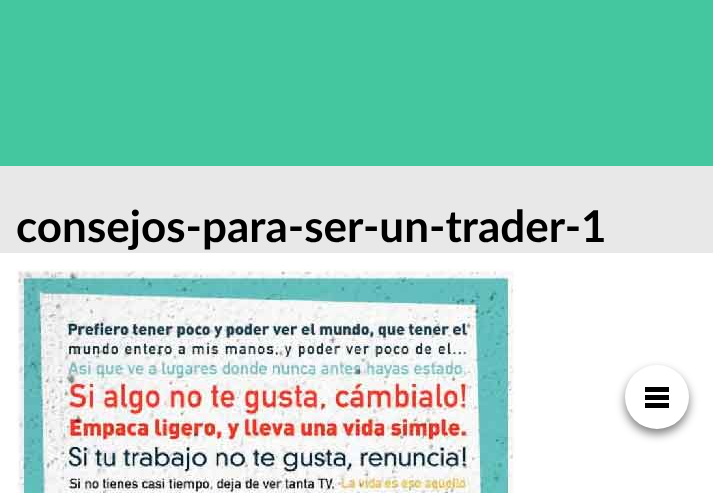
<svg xmlns="http://www.w3.org/2000/svg" width="713" height="493">
<style>
.a{font:bold 44px Lato;fill:#000}
</style>
<rect width="100%" height="100%" fill="#e8e8e8"/>
<path fill="#44c79f" d="M0 0h713v166H0z"/>
<path fill="#fff" d="M0 253h713v240H0z"/>
<rect fill="#00000080" filter="blur(5px)" x="625" y="370" width="64" height="64" rx="32"/>
<circle fill="#fff" cx="657" cy="397" r="32"/>
<path fill="#000" d="M645 395h24v5H645z"/>
<path fill="#000" d="M645 387h24v5H645z"/>
<path fill="#000" d="M645 403h24v5H645z"/>
<image href="1.png" x="16" y="269" width="500" height="224"/>
<text class="a" x="16" y="242">consejos-para-ser-un-trader-1</text>
</svg>
